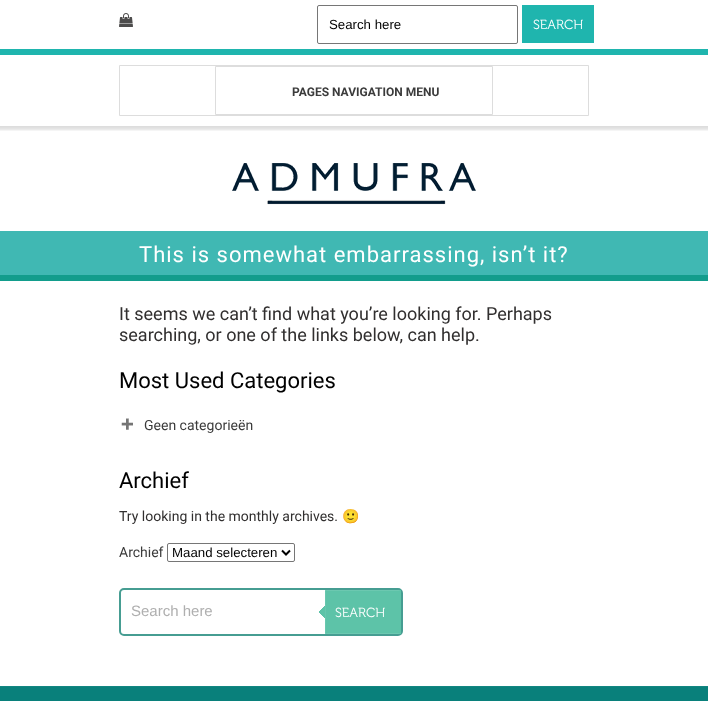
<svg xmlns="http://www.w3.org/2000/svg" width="708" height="701">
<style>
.a{font:13.25px Liberation Sans;fill:#000}
.b{font:13.25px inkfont;fill:#fff}
.c{font:bold 12px Roboto;fill:#3b3b3b}
.d{font:22px Roboto;letter-spacing:1px;fill:#fff}
.e{font:18px Roboto;fill:#312f2f}
.f{font:22px Roboto;fill:#000}
.g{font:14px Roboto;fill:#3b3b3b}
.h{font:14px Roboto;fill:#312f2f}
.i{font:14px Noto Color Emoji;fill:#312f2f}
.j{font:15px Liberation Sans;fill:#afafaf}
</style>
<rect width="100%" height="100%" fill="#fff"/>
<image href="1.png" x="119" y="13" width="14" height="14"/>
<rect fill="none" stroke="#767676" x="317.5" y="5.5" width="200" height="38" rx="1.5"/>
<path fill="#1fb5ae" d="M522 5h72v38H522z"/>
<path fill="#1fb5ae" d="M0 49h708v6H0z"/>
<path fill="none" stroke="#ddd" d="M119.5 65.5h469v50H119.5z"/>
<path fill="none" stroke="#ddd" d="M215.5 66.5h277v48H215.5z"/>
<image href="2.png" x="0" y="127" width="708" height="4"/>
<path fill="#ddd" d="M0 126h708v1H0z"/>
<image href="3.png" x="232" y="163" width="244" height="42"/>
<path fill="#40b8b3" d="M0 231h708v44H0z"/>
<path fill="#129d8c" d="M0 275h708v6H0z"/>
<image href="4.png" x="121" y="418" width="12" height="12"/>
<rect fill="none" stroke="#767676" x="167.5" y="543.5" width="127" height="18" rx="1.5"/>
<path fill="none" stroke="#000" stroke-width="2" d="M282 550.5l4 4l4-4"/>
<rect fill="none" stroke="#469d92" stroke-width="2" x="120" y="589" width="282" height="46" rx="4"/>
<image href="5.png" x="319" y="590" width="82" height="44"/>
<path fill="#09807b" d="M0 687h708v14H0z"/>
<path fill="#138681" d="M0 686h708v1H0z"/>
<text class="a" x="329" y="29">Search here</text>
<text class="b" x="533" y="29">SEARCH</text>
<text class="c" x="292" y="96">PAGES NAVIGATION MENU</text>
<text class="d" x="139" y="262">This is somewhat embarrassing, isn’t it?</text>
<text class="e" x="119" y="320">It seems we can’t find what you’re looking for. Perhaps</text>
<text class="e" x="119" y="341">searching, or one of the links below, can help.</text>
<text class="f" x="119" y="388">Most Used Categories</text>
<text class="g" x="144" y="430">Geen categorieën</text>
<text class="f" x="119" y="488">Archief</text>
<text class="h" x="119" y="521">Try looking in the monthly archives.</text>
<text class="i" x="342" y="521">🙂</text>
<text class="g" x="119" y="557">Archief</text>
<text class="a" x="172" y="557">Maand selecteren</text>
<text class="j" x="131" y="616">Search here</text>
<text class="b" x="335" y="617">SEARCH</text>
</svg>
